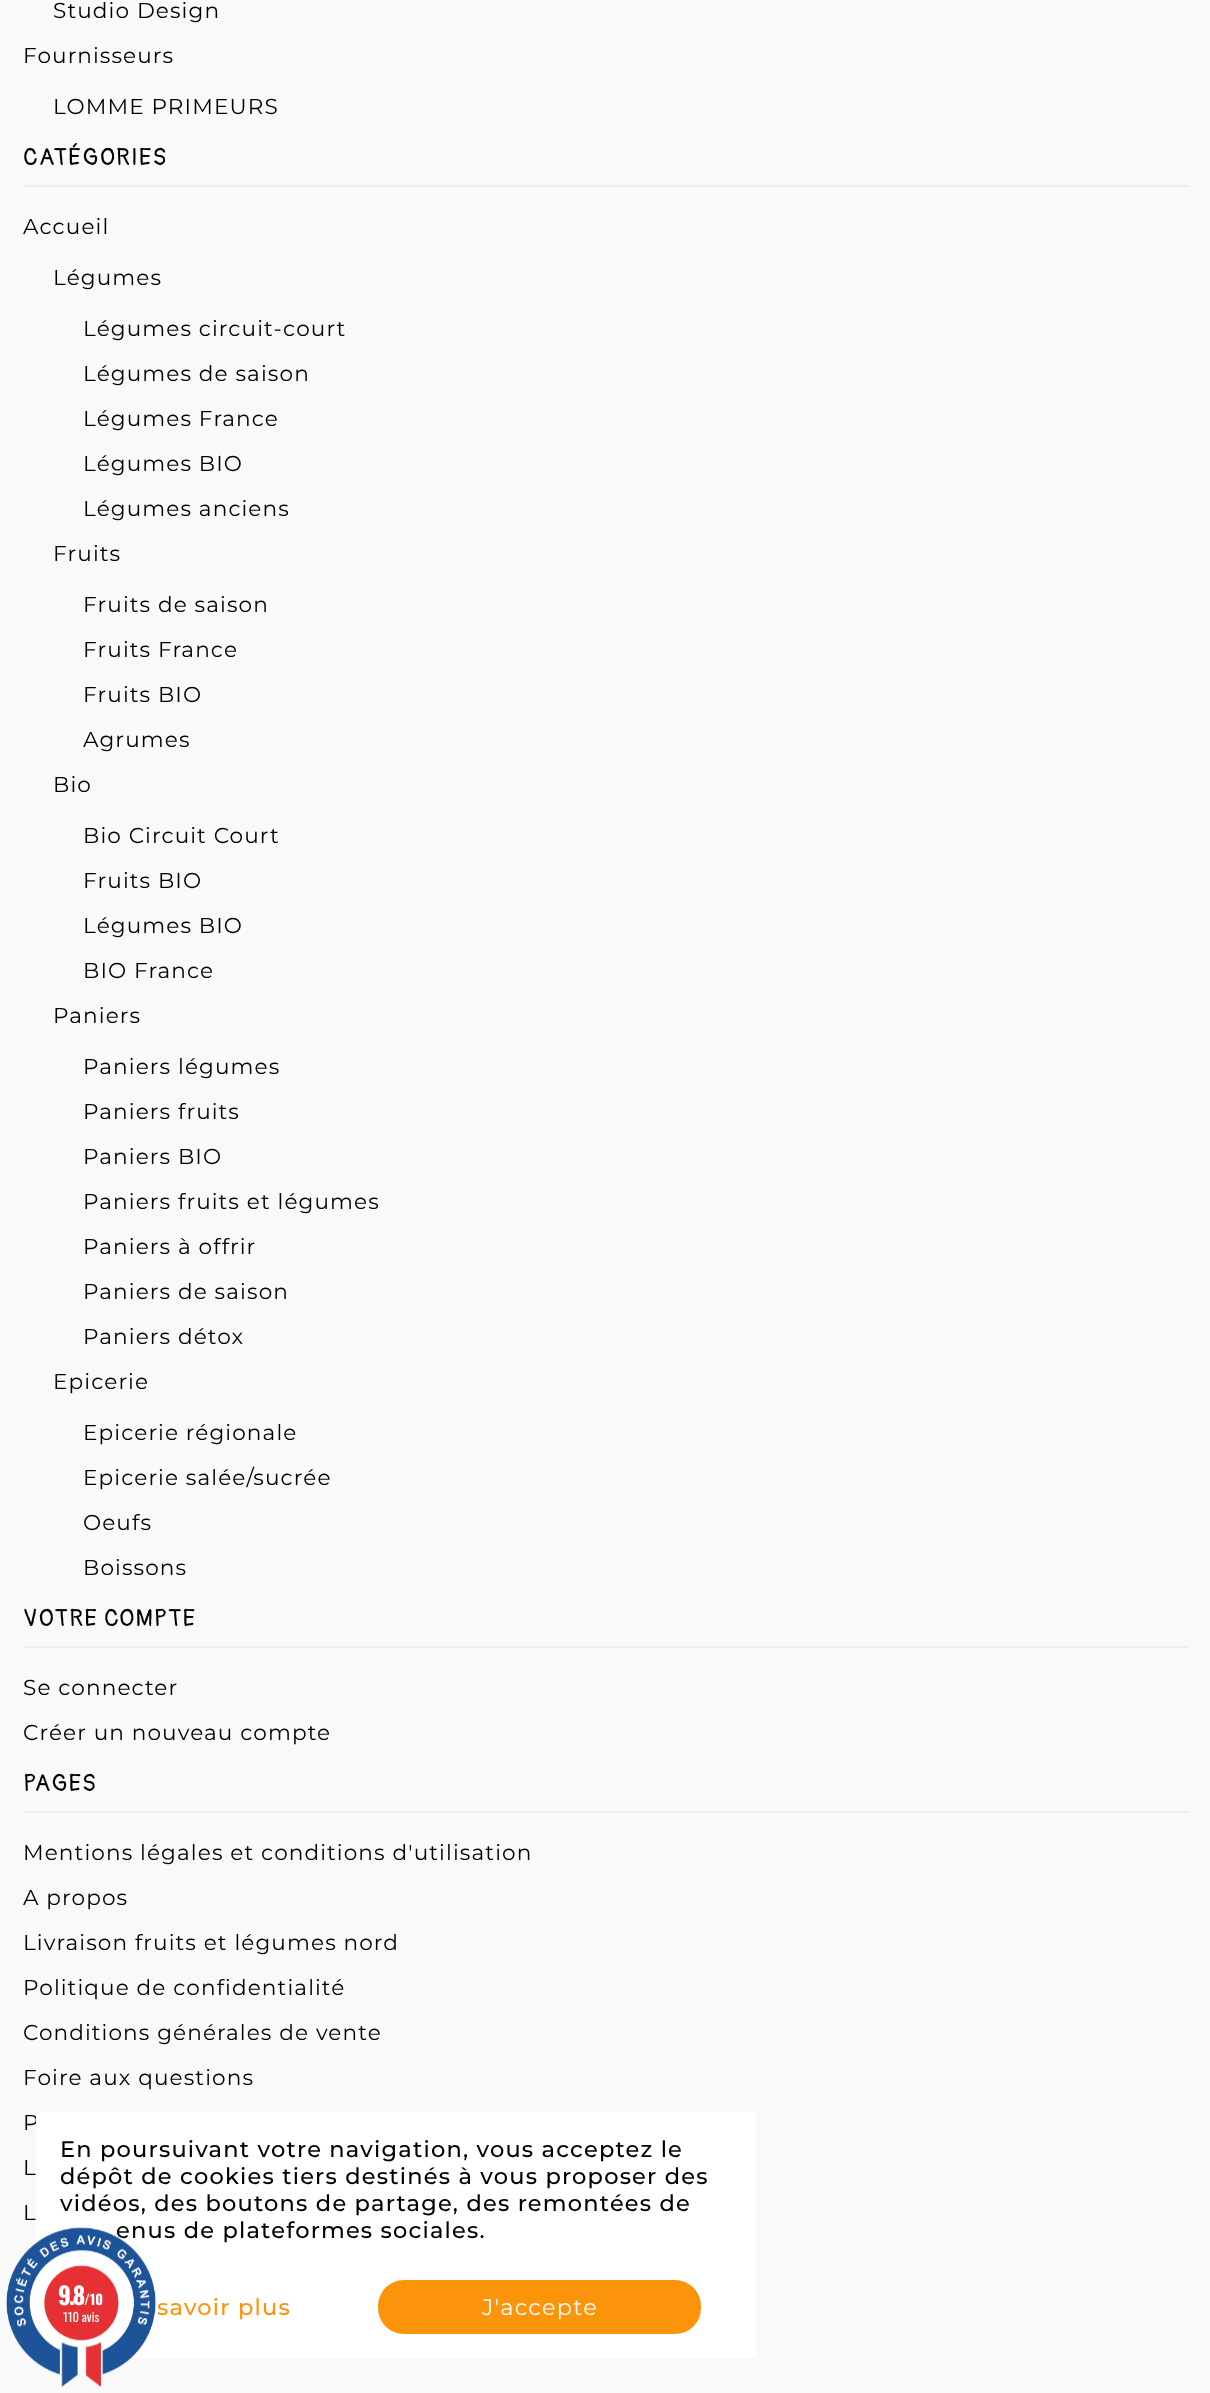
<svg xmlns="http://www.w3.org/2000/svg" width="1210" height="2393">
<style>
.a{font:21.6px Montserrat;letter-spacing:1.1px;fill:#000}
.b{font:24px Pangolin;letter-spacing:1.1px;fill:#000}
.c{font:500 22.5px Montserrat;letter-spacing:1.2px;fill:#000}
.d{font:500 22.5px Montserrat;letter-spacing:1.2px;fill:#fc940b}
.e{font:22.5px Montserrat;letter-spacing:1.2px;fill:#fff}
.f{font:bold 24px Oswald;letter-spacing:-2px;fill:#fff}
.g{font:bold 14px Oswald;fill:#fff}
.h{font:12.5px Oswald;fill:#fff}
</style>
<rect width="100%" height="100%" fill="#f9f9f9"/>
<path fill="#eee" d="M23 185h1165v2H23z"/>
<path fill="#eee" d="M23 1646h1165v2H23z"/>
<path fill="#eee" d="M23 1811h1165v2H23z"/>
<text class="a" x="53" y="18">Studio Design</text>
<text class="a" x="23" y="63">Fournisseurs</text>
<text class="a" x="53" y="114">LOMME PRIMEURS</text>
<text class="b" x="23" y="165">CATÉGORIES</text>
<text class="a" x="23" y="234">Accueil</text>
<text class="a" x="53" y="285">Légumes</text>
<text class="a" x="83" y="336">Légumes circuit-court</text>
<text class="a" x="83" y="381">Légumes de saison</text>
<text class="a" x="83" y="426">Légumes France</text>
<text class="a" x="83" y="471">Légumes BIO</text>
<text class="a" x="83" y="516">Légumes anciens</text>
<text class="a" x="53" y="561">Fruits</text>
<text class="a" x="83" y="612">Fruits de saison</text>
<text class="a" x="83" y="657">Fruits France</text>
<text class="a" x="83" y="702">Fruits BIO</text>
<text class="a" x="83" y="747">Agrumes</text>
<text class="a" x="53" y="792">Bio</text>
<text class="a" x="83" y="843">Bio Circuit Court</text>
<text class="a" x="83" y="888">Fruits BIO</text>
<text class="a" x="83" y="933">Légumes BIO</text>
<text class="a" x="83" y="978">BIO France</text>
<text class="a" x="53" y="1023">Paniers</text>
<text class="a" x="83" y="1074">Paniers légumes</text>
<text class="a" x="83" y="1119">Paniers fruits</text>
<text class="a" x="83" y="1164">Paniers BIO</text>
<text class="a" x="83" y="1209">Paniers fruits et légumes</text>
<text class="a" x="83" y="1254">Paniers à offrir</text>
<text class="a" x="83" y="1299">Paniers de saison</text>
<text class="a" x="83" y="1344">Paniers détox</text>
<text class="a" x="53" y="1389">Epicerie</text>
<text class="a" x="83" y="1440">Epicerie régionale</text>
<text class="a" x="83" y="1485">Epicerie salée/sucrée</text>
<text class="a" x="83" y="1530">Oeufs</text>
<text class="a" x="83" y="1575">Boissons</text>
<text class="b" x="23" y="1626">VOTRE COMPTE</text>
<text class="a" x="23" y="1695">Se connecter</text>
<text class="a" x="23" y="1740">Créer un nouveau compte</text>
<text class="b" x="23" y="1791">PAGES</text>
<text class="a" x="23" y="1860">Mentions légales et conditions d'utilisation</text>
<text class="a" x="23" y="1905">A propos</text>
<text class="a" x="23" y="1950">Livraison fruits et légumes nord</text>
<text class="a" x="23" y="1995">Politique de confidentialité</text>
<text class="a" x="23" y="2040">Conditions générales de vente</text>
<text class="a" x="23" y="2085">Foire aux questions</text>
<text class="a" x="23" y="2130">P</text>
<text class="a" x="23" y="2175">L</text>
<text class="a" x="23" y="2220">L</text>
<path fill="#fff" d="M36 2112h720v246H36z"/>
<text class="c" x="60" y="2157">En poursuivant votre navigation, vous acceptez le</text>
<text class="c" x="60" y="2184">dépôt de cookies tiers destinés à vous proposer des</text>
<text class="c" x="60" y="2211">vidéos, des boutons de partage, des remontées de</text>
<text class="c" x="116" y="2238">enus de plateformes sociales.</text>
<text class="d" x="157" y="2315">savoir plus</text>
<rect fill="#fc940b" x="378" y="2280" width="323" height="54" rx="26"/>
<text class="e" x="482" y="2315">J'accepte</text>
<image href="1.png" x="6" y="2227" width="150" height="161"/>
<text class="f" x="58" y="2305">9.8</text>
<text class="g" x="84" y="2305">/10</text>
<text class="h" x="63" y="2322">110 avis</text>
</svg>
